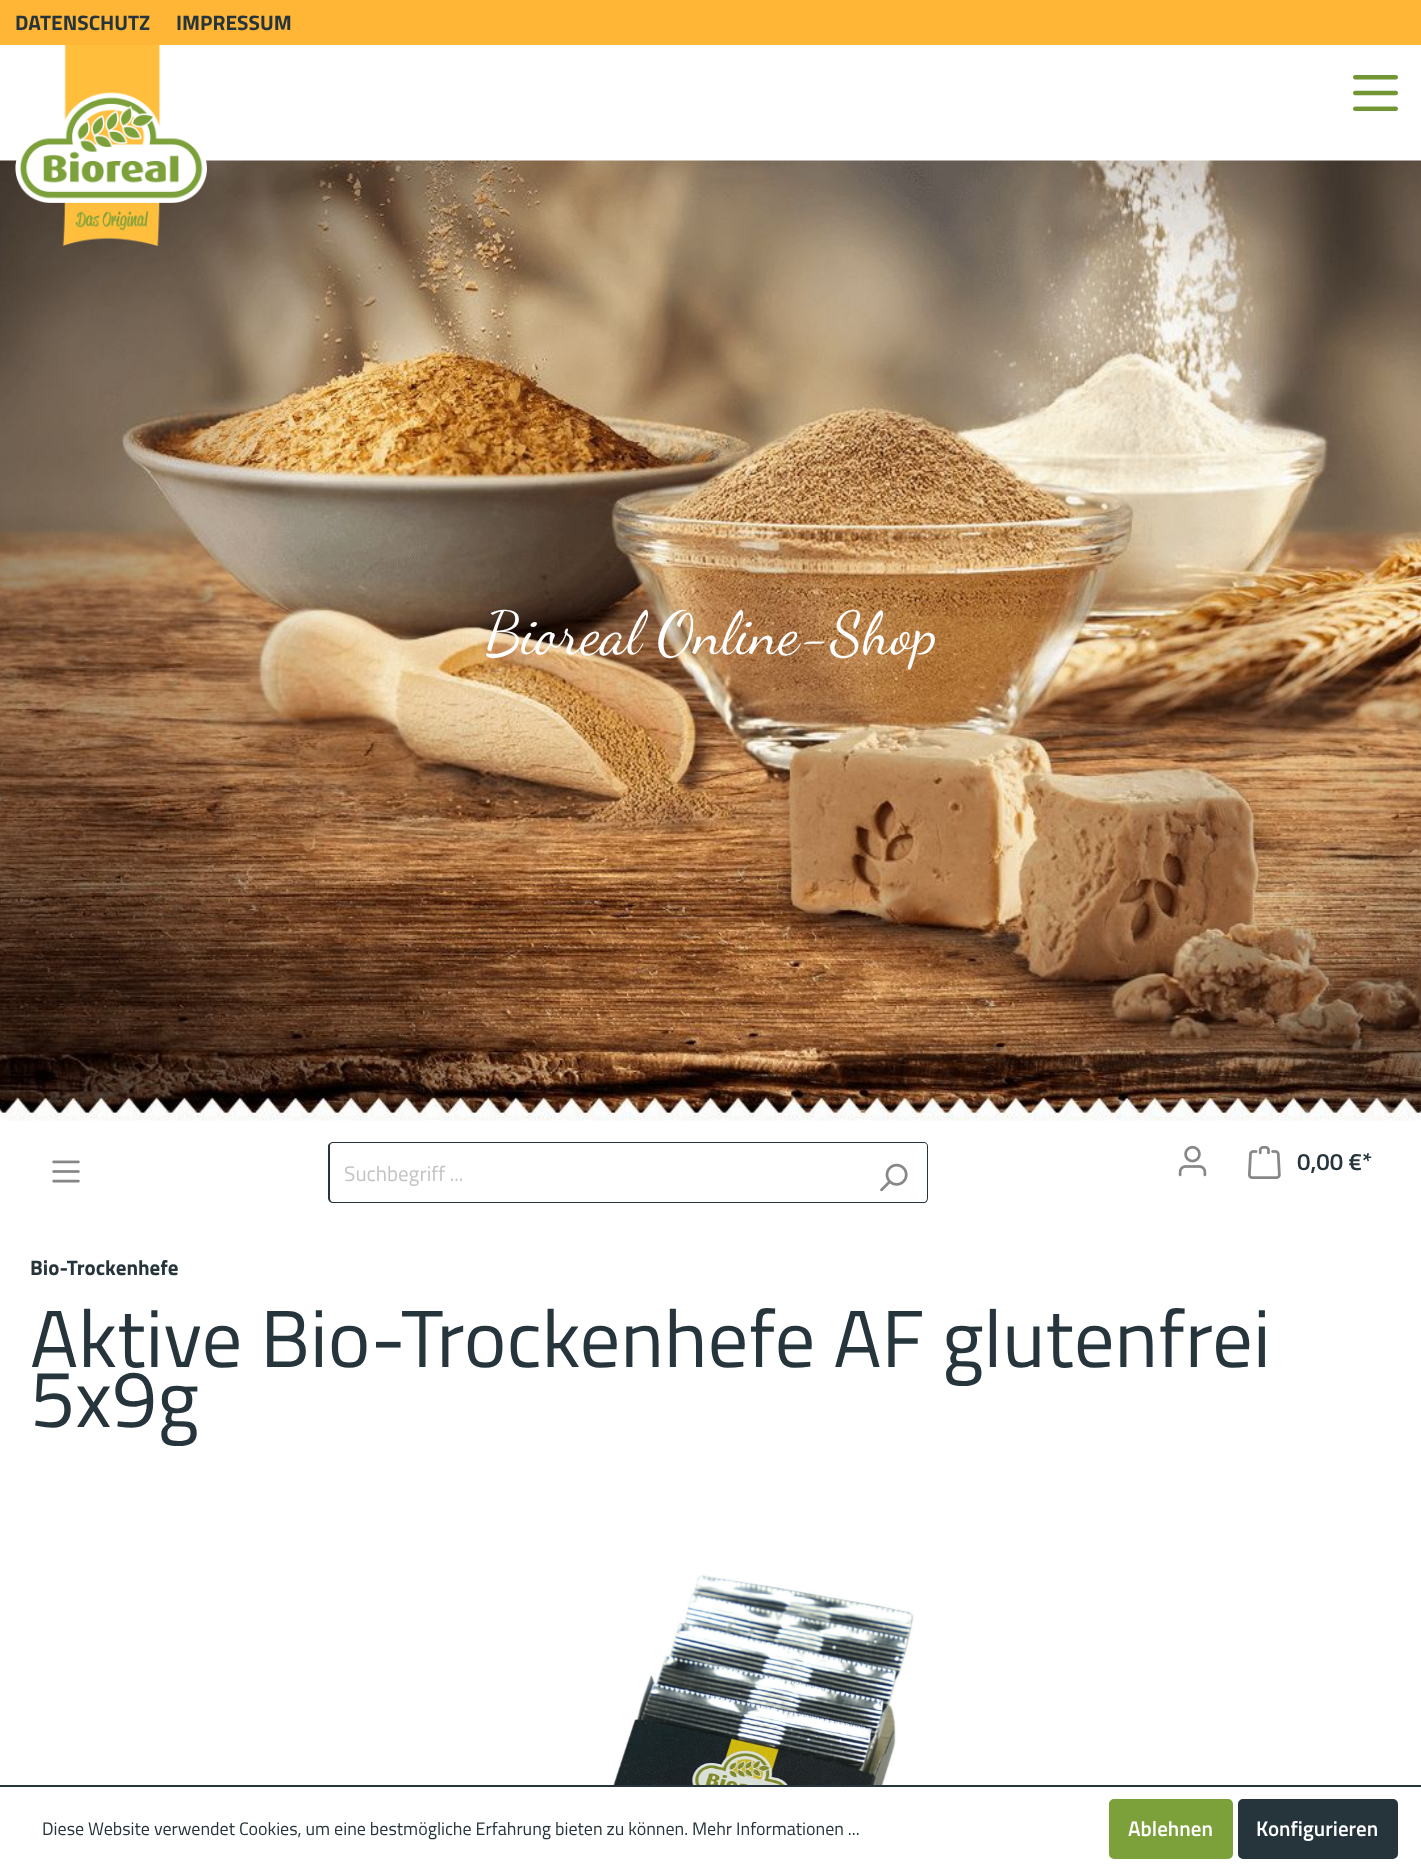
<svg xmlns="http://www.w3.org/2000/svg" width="1421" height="1870">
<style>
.a{font:bold 21px Titillium Web;fill:#26343b}
.b{font:60px Dancing Script;fill:#fff}
.c{font:600 24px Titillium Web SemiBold;fill:#26343b}
.d{font:21px Titillium Web;fill:#c3c3c3}
.e{font:81px Titillium Web;fill:#26343b}
.f{font:18px Titillium Web;fill:#26343b}
.g{font:600 21px Titillium Web SemiBold;fill:#fff}
</style>
<rect width="100%" height="100%" fill="#fff"/>
<path fill="#ffb636" d="M0 0h1421v45H0z"/>
<image href="1.png" x="1353" y="75" width="45" height="36"/>
<image href="3.png" x="0" y="160" width="1421" height="961"/>
<image href="2.png" x="15" y="45" width="192" height="201"/>
<image href="4.png" x="1178" y="1145" width="29" height="32"/>
<image href="5.png" x="1248" y="1146" width="33" height="33"/>
<image href="6.png" x="52" y="1160" width="28" height="23"/>
<path fill="#26343b" fill-rule="evenodd" d="M333 1142h527v61h-527c-2 0-5-2-5-5v-52c0-2 3-4 5-4zm0 1h527v59h-527c-2 0-3-2-3-4v-52c0-2 1-3 3-3z"/>
<path fill="#fff" d="M858 1142h66c3 0 5 2 5 5v51c0 3-2 5-5 5h-66z"/>
<path fill="#26343b" fill-rule="evenodd" d="M858 1142h66c2 0 4 2 4 4v52c0 3-2 5-4 5h-66zm0 1h66c2 0 3 1 3 3v52c0 2-1 4-3 4h-66z"/>
<image href="7.png" x="880" y="1163" width="28" height="29"/>
<image href="8.png" x="585" y="1574" width="329" height="211"/>
<path fill="#26343b" d="M0 1785h1421v2H0z"/>
<rect fill="#7ca13a" stroke="#7ca13a" stroke-width="2" x="1110" y="1800" width="122" height="58" rx="4"/>
<rect fill="#26343b" stroke="#26343b" stroke-width="2" x="1239" y="1800" width="158" height="58" rx="4"/>
<text class="a" x="15" y="30">DATENSCHUTZ</text>
<text class="a" x="176" y="30">IMPRESSUM</text>
<text class="b" x="485" y="653">Bioreal Online-Shop</text>
<text class="c" x="1297" y="1170">0,00 €*</text>
<text class="d" x="344" y="1181">Suchbegriff ...</text>
<text class="a" x="30" y="1275">Bio-Trockenhefe</text>
<text class="e" x="30" y="1367">Aktive Bio-Trockenhefe AF glutenfrei</text>
<text class="e" x="30" y="1427">5x9g</text>
<text class="f" x="42" y="1835">Diese Website verwendet Cookies, um eine bestmögliche Erfahrung bieten zu können. Mehr Informationen ...</text>
<text class="g" x="1128" y="1836">Ablehnen</text>
<text class="g" x="1256" y="1836">Konfigurieren</text>
</svg>
